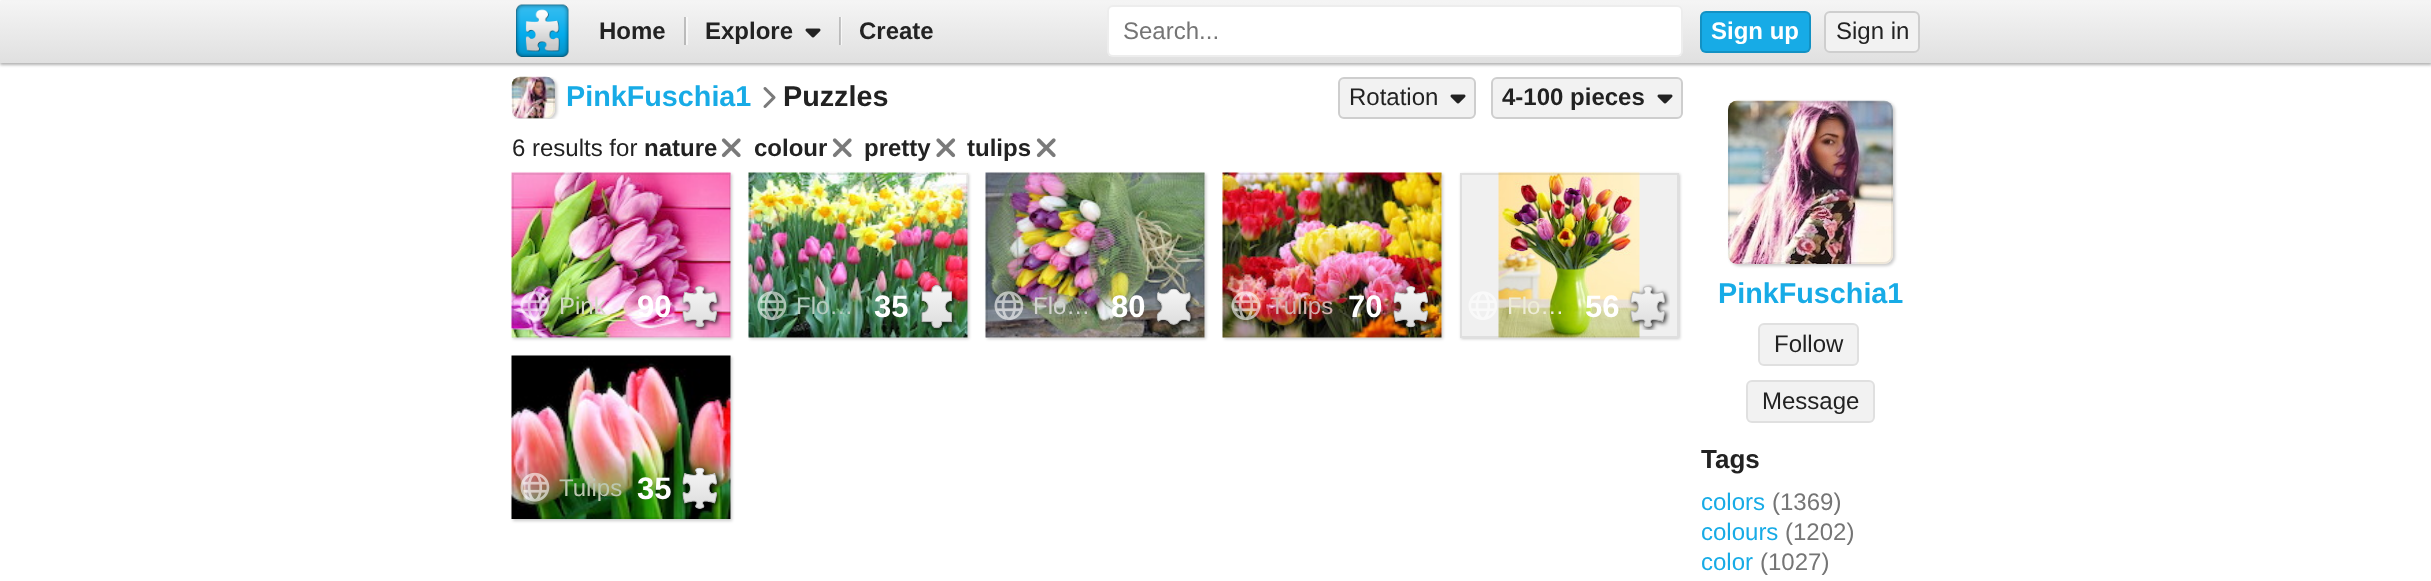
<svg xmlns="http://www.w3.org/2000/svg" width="2431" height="581">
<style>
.a{font:bold 24px Liberation Sans;fill:#222}
.b{font:24px Liberation Sans;fill:#757575}
.c{font:bold 24px Liberation Sans;fill:#fff}
.d{font:24px Liberation Sans;fill:#222}
.e{font:bold 28.75px Liberation Sans;fill:#17abe6}
.f{font:bold 28.75px Liberation Sans;fill:#222}
.g{font:24px Liberation Sans;fill:#d3d8c4}
.h{font:bold 31px Liberation Sans;fill:#fff}
.i{font:24px Liberation Sans;fill:#b7ccc0}
.j{font:24px Liberation Sans;fill:#d3d4d0}
.k{font:24px Liberation Sans;fill:#d3b1ae}
.l{font:24px Liberation Sans;fill:#eeecd7}
.m{font:24px Liberation Sans;fill:#bcc7b0}
.n{font:bold 26px Liberation Sans;fill:#222}
.o{font:24px Liberation Sans;fill:#17abe6}
</style>
<defs>
<linearGradient id="g1" gradientUnits="userSpaceOnUse" x1="1216" y1="0" x2="1216" y2="63"><stop offset="0" stop-color="#f5f5f5"/><stop offset="1" stop-color="#e0e0e0"/></linearGradient>
<linearGradient id="g2" gradientUnits="userSpaceOnUse" x1="1216" y1="0" x2="1216" y2="63"><stop offset="0" stop-color="#c4c4c4"/><stop offset="1" stop-color="#b3b3b3"/></linearGradient>
<linearGradient id="g3" gradientUnits="userSpaceOnUse" x1="1216" y1="0" x2="1216" y2="63"><stop offset="0" stop-color="#fbfbfb"/><stop offset="1" stop-color="#f3f3f3"/></linearGradient>
<linearGradient id="g4" gradientUnits="userSpaceOnUse" x1="1216" y1="0" x2="1216" y2="63"><stop offset="0" stop-color="#c9c9c9"/><stop offset="1" stop-color="#c2c2c2"/></linearGradient>
<clipPath id="clip1"><path d="M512 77h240v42H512z"/></clipPath>
</defs>
<rect width="100%" height="100%" fill="#fff"/>
<path fill="#0000004d" filter="blur(1.5px)" d="M0 2h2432v63H0z"/>
<path fill="url(#g1)" d="M0 1h2431v62H0z"/>
<path fill="url(#g2)" d="M839 17h1v28H839z"/>
<path fill="url(#g3)" d="M841 17h1v28H841z"/>
<path fill="url(#g4)" d="M840 17h1v28H840z"/>
<path fill="url(#g2)" d="M684 17h2v28H684z"/>
<path fill="url(#g3)" d="M686 17h2v28H686z"/>
<image href="1.png" x="516" y="4" width="53" height="53"/>
<image href="2.png" x="805" y="28" width="16" height="10"/>
<rect fill="#fff" x="1107" y="5" width="576" height="52" rx="6"/>
<rect fill="none" stroke="#00000012" stroke-width="2" x="1108" y="6" width="574" height="50" rx="5"/>
<rect fill="#17abe6" x="1700" y="11" width="111" height="42" rx="6"/>
<rect fill="none" stroke="#00000026" stroke-width="2" x="1701" y="12" width="109" height="40" rx="5"/>
<rect fill="#f2f2f2" x="1824" y="11" width="96" height="42" rx="6"/>
<rect fill="none" stroke="#00000026" stroke-width="2" x="1825" y="12" width="94" height="40" rx="5"/>
<g clip-path="url(#clip1)">
<rect fill="#00000033" filter="blur(1.5px)" x="513" y="78" width="44" height="42" rx="9"/>
</g>
<rect fill="#f0f0f0" x="512" y="77" width="43" height="42" rx="9"/>
<image href="3.png" x="511" y="76" width="44" height="43"/>
<rect fill="none" stroke="#00000012" stroke-width="2" x="513" y="78" width="41" height="40" rx="8"/>
<image href="4.png" x="763" y="87" width="13" height="21"/>
<rect fill="#f2f2f2" x="1338" y="77" width="138" height="42" rx="6"/>
<rect fill="none" stroke="#00000026" stroke-width="2" x="1339" y="78" width="136" height="40" rx="5"/>
<image href="5.png" x="1450" y="94" width="16" height="10"/>
<rect fill="#f2f2f2" x="1491" y="77" width="192" height="42" rx="6"/>
<rect fill="none" stroke="#00000026" stroke-width="2" x="1492" y="78" width="190" height="40" rx="5"/>
<image href="5.png" x="1657" y="94" width="16" height="10"/>
<image href="6.png" x="721" y="138" width="20" height="20"/>
<image href="6.png" x="832" y="138" width="20" height="20"/>
<image href="7.png" x="936" y="138" width="20" height="20"/>
<image href="6.png" x="1036" y="138" width="20" height="20"/>
<path fill="#00000033" filter="blur(1.5px)" d="M513 174h219v165H513z"/>
<path fill="#f0f0f0" d="M512 173h219v165H512z"/>
<image href="8.png" x="511" y="172" width="220" height="166"/>
<path fill="none" stroke="#00000012" stroke-width="2" d="M513 174h217v163H513z"/>
<image href="9.png" x="520" y="291" width="30" height="29"/>
<image href="10.png" x="680" y="284" width="42" height="46"/>
<path fill="#00000033" filter="blur(1.5px)" d="M750 174h219v165H750z"/>
<path fill="#f0f0f0" d="M749 173h219v165H749z"/>
<image href="11.png" x="748" y="172" width="220" height="166"/>
<path fill="none" stroke="#00000012" stroke-width="2" d="M750 174h217v163H750z"/>
<image href="12.png" x="757" y="291" width="30" height="30"/>
<image href="13.png" x="919" y="283" width="39" height="47"/>
<path fill="#00000033" filter="blur(1.5px)" d="M987 174h219v165H987z"/>
<path fill="#f0f0f0" d="M986 173h219v165H986z"/>
<image href="14.png" x="985" y="172" width="220" height="166"/>
<path fill="none" stroke="#00000012" stroke-width="2" d="M987 174h217v163H987z"/>
<image href="15.png" x="994" y="291" width="30" height="30"/>
<image href="16.png" x="1155" y="287" width="41" height="42"/>
<path fill="#00000033" filter="blur(1.5px)" d="M1224 174h219v165H1224z"/>
<path fill="#f0f0f0" d="M1223 173h219v165H1223z"/>
<image href="17.png" x="1222" y="172" width="220" height="166"/>
<path fill="none" stroke="#00000012" stroke-width="2" d="M1224 174h217v163H1224z"/>
<image href="18.png" x="1231" y="291" width="30" height="30"/>
<image href="19.png" x="1391" y="284" width="42" height="46"/>
<path fill="#00000033" filter="blur(1.5px)" d="M1461 174h219v165H1461z"/>
<path fill="#f0f0f0" d="M1460 173h219v165H1460z"/>
<image href="20.png" x="1498" y="172" width="142" height="166"/>
<path fill="none" stroke="#00000012" stroke-width="2" d="M1461 174h217v163H1461z"/>
<image href="21.png" x="1468" y="291" width="29" height="29"/>
<image href="22.png" x="1628" y="284" width="42" height="46"/>
<path fill="#00000033" filter="blur(1.5px)" d="M513 357h219v164H513z"/>
<path fill="#f0f0f0" d="M730 356h1v163H730z"/>
<image href="23.png" x="511" y="355" width="220" height="164"/>
<path fill="none" stroke="#00000012" stroke-width="2" d="M513 357h217v161H513z"/>
<image href="24.png" x="520" y="472" width="30" height="30"/>
<image href="25.png" x="681" y="465" width="41" height="48"/>
<rect fill="#00000033" filter="blur(1.5px)" x="1730" y="102" width="165" height="164" rx="9"/>
<rect fill="#f0f0f0" x="1728" y="101" width="165" height="163" rx="9"/>
<image href="26.png" x="1728" y="100" width="165" height="164"/>
<rect fill="none" stroke="#00000012" stroke-width="2" x="1729" y="102" width="163" height="161" rx="8"/>
<rect fill="#f2f2f2" x="1758" y="323" width="101" height="43" rx="6"/>
<rect fill="none" stroke="#00000012" stroke-width="2" x="1759" y="324" width="99" height="41" rx="5"/>
<rect fill="#f2f2f2" x="1746" y="380" width="129" height="43" rx="6"/>
<rect fill="none" stroke="#00000012" stroke-width="2" x="1747" y="381" width="127" height="41" rx="5"/>
<text class="a" x="599" y="39">Home</text>
<text class="a" x="705" y="39">Explore</text>
<text class="a" x="859" y="39">Create</text>
<text class="b" x="1123" y="39">Search...</text>
<text class="c" x="1711" y="39">Sign up</text>
<text class="d" x="1836" y="39">Sign in</text>
<text class="e" x="566" y="106">PinkFuschia1</text>
<text class="f" x="783" y="106">Puzzles</text>
<text class="d" x="1349" y="105">Rotation</text>
<text class="a" x="1502" y="105">4-100 pieces</text>
<text class="d" x="512" y="156">6 results for</text>
<text class="a" x="644" y="156">nature</text>
<text class="a" x="754" y="156">colour</text>
<text class="a" x="864" y="156">pretty</text>
<text class="a" x="967" y="156">tulips</text>
<text class="g" x="559" y="314">Pink</text>
<text class="h" x="637" y="317">90</text>
<text class="i" x="796" y="314">Flo…</text>
<text class="h" x="874" y="317">35</text>
<text class="j" x="1033" y="314">Flo…</text>
<text class="h" x="1111" y="317">80</text>
<text class="k" x="1270" y="314">Tulips</text>
<text class="h" x="1348" y="317">70</text>
<text class="l" x="1507" y="314">Flo…</text>
<text class="h" x="1585" y="317">56</text>
<text class="m" x="559" y="496">Tulips</text>
<text class="h" x="637" y="499">35</text>
<text class="e" x="1718" y="303">PinkFuschia1</text>
<text class="d" x="1774" y="352">Follow</text>
<text class="d" x="1762" y="409">Message</text>
<text class="n" x="1701" y="468">Tags</text>
<text class="o" x="1701" y="510">colors</text>
<text class="b" x="1772" y="510">(1369)</text>
<text class="o" x="1701" y="540">colours</text>
<text class="b" x="1785" y="540">(1202)</text>
<text class="o" x="1701" y="570">color</text>
<text class="b" x="1760" y="570">(1027)</text>
</svg>
